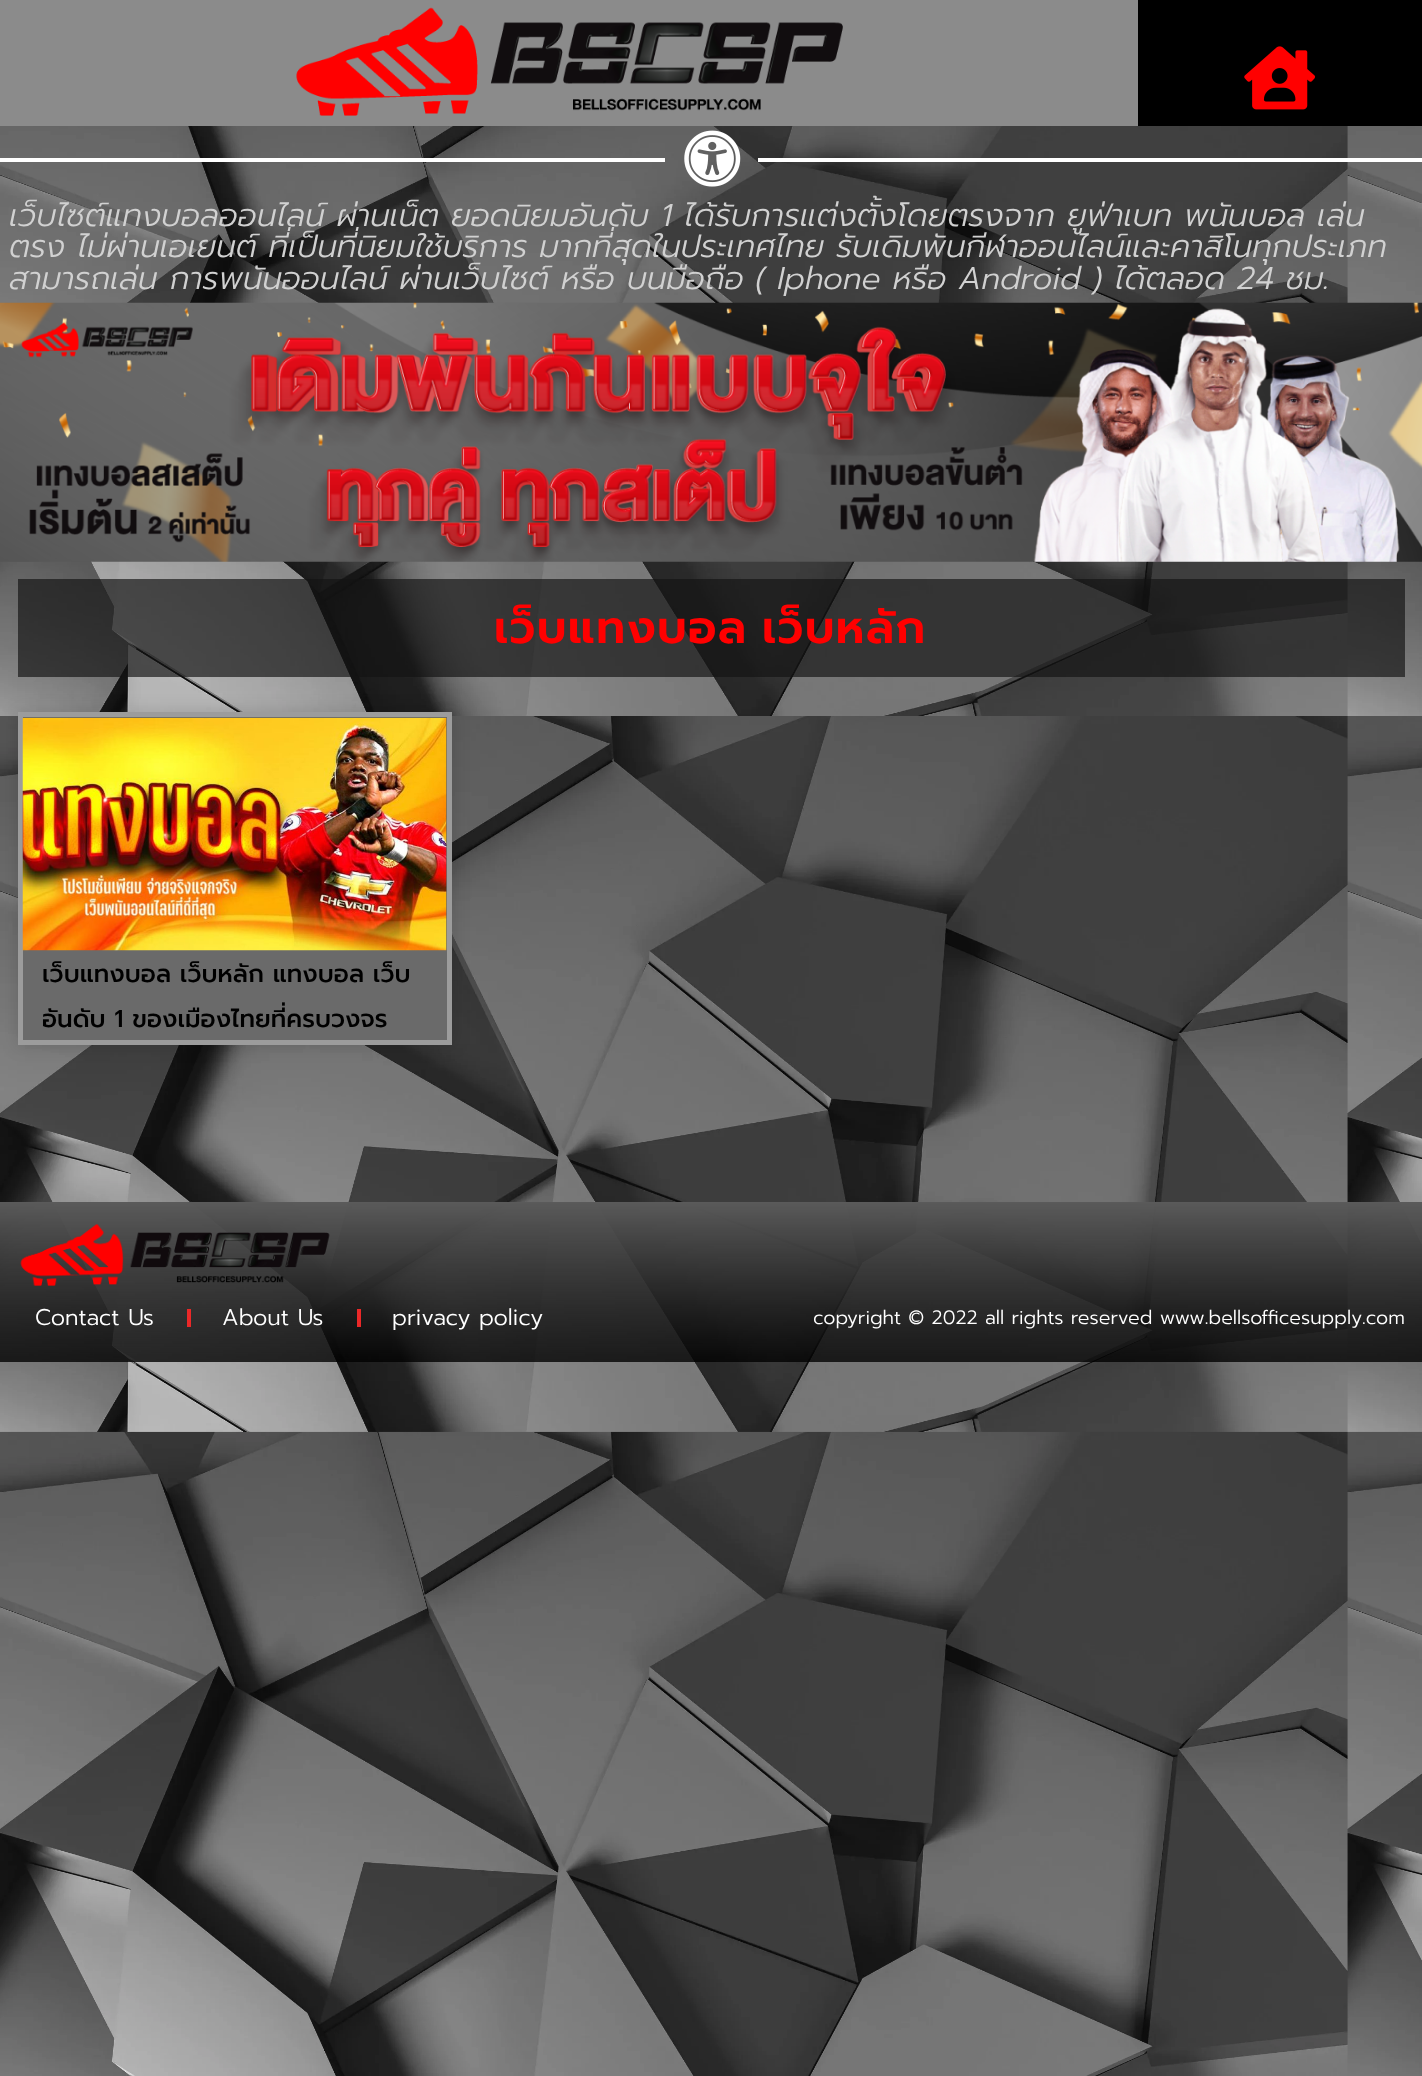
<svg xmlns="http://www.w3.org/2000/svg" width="1422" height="2076">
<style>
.a{font:italic 300 31.5px Prompt;fill:#d1d1d1}
.b{font:600 45.5px Prompt;letter-spacing:1.4px;fill:#f00}
.c{font:500 24.5px Prompt;fill:#000}
.d{font:300 22.75px Prompt;fill:#fff}
.e{font:300 19.25px Prompt;fill:#fff}
</style>
<rect width="100%" height="100%" fill="#fff"/>
<image href="1.png" x="0" y="126" width="1422" height="1950"/>
<path fill="#8b8b8b" d="M0 0h1138v126H0z"/>
<image href="2.png" x="296" y="7" width="547" height="109"/>
<path fill="#000" d="M1138 0h284v126H1138z"/>
<image href="3.png" x="1244" y="46" width="72" height="64"/>
<path fill="#fff" d="M0 158h665v4H0z"/>
<image href="4.png" x="684" y="130" width="57" height="57"/>
<path fill="#fff" d="M758 158h664v4H758z"/>
<image href="5.png" x="0" y="302" width="1422" height="260"/>
<path fill="#131313ab" d="M18 579h1387v98H18z"/>
<path fill="#00000026" filter="blur(9px)" d="M18 712h434v333H18z"/>
<path fill="#6a6a6a" stroke="#9c9c9c" stroke-width="5" d="M20.5 714.5h429v328H20.5z"/>
<image href="6.png" x="22" y="717" width="425" height="234"/>
<image href="7.png" x="20" y="1224" width="310" height="62"/>
<path fill="#eb2828" d="M187 1309h4v18H187z"/>
<path fill="#eb2828" d="M357 1309h4v18H357z"/>
<text class="a" x="9" y="226">เว็บไซต์แทงบอลออนไลน์ ผ่านเน็ต ยอดนิยมอันดับ 1 ได้รับการแต่งตั้งโดยตรงจาก ยูฟ่าเบท พนันบอล เล่น</text>
<text class="a" x="9" y="257">ตรง ไม่ผ่านเอเยนต์ ที่เป็นที่นิยมใช้บริการ มากที่สุดในประเทศไทย รับเดิมพันกีฬาออนไลน์และคาสิโนทุกประเภท</text>
<text class="a" x="9" y="289">สามารถเล่น การพนันออนไลน์ ผ่านเว็บไซต์ หรือ บนมือถือ ( Iphone หรือ Android ) ได้ตลอด 24 ชม.</text>
<text class="b" x="494" y="643" word-spacing="-3">เว็บแทงบอล เว็บหลัก</text>
<text class="c" x="42" y="982">เว็บแทงบอล เว็บหลัก แทงบอล เว็บ</text>
<text class="c" x="42" y="1027">อันดับ 1 ของเมืองไทยที่ครบวงจร</text>
<text class="d" x="35" y="1325">Contact Us</text>
<text class="d" x="222" y="1325">About Us</text>
<text class="d" x="392" y="1325">privacy policy</text>
<text class="e" x="813" y="1324">copyright © 2022 all rights reserved www.bellsofficesupply.com</text>
</svg>
